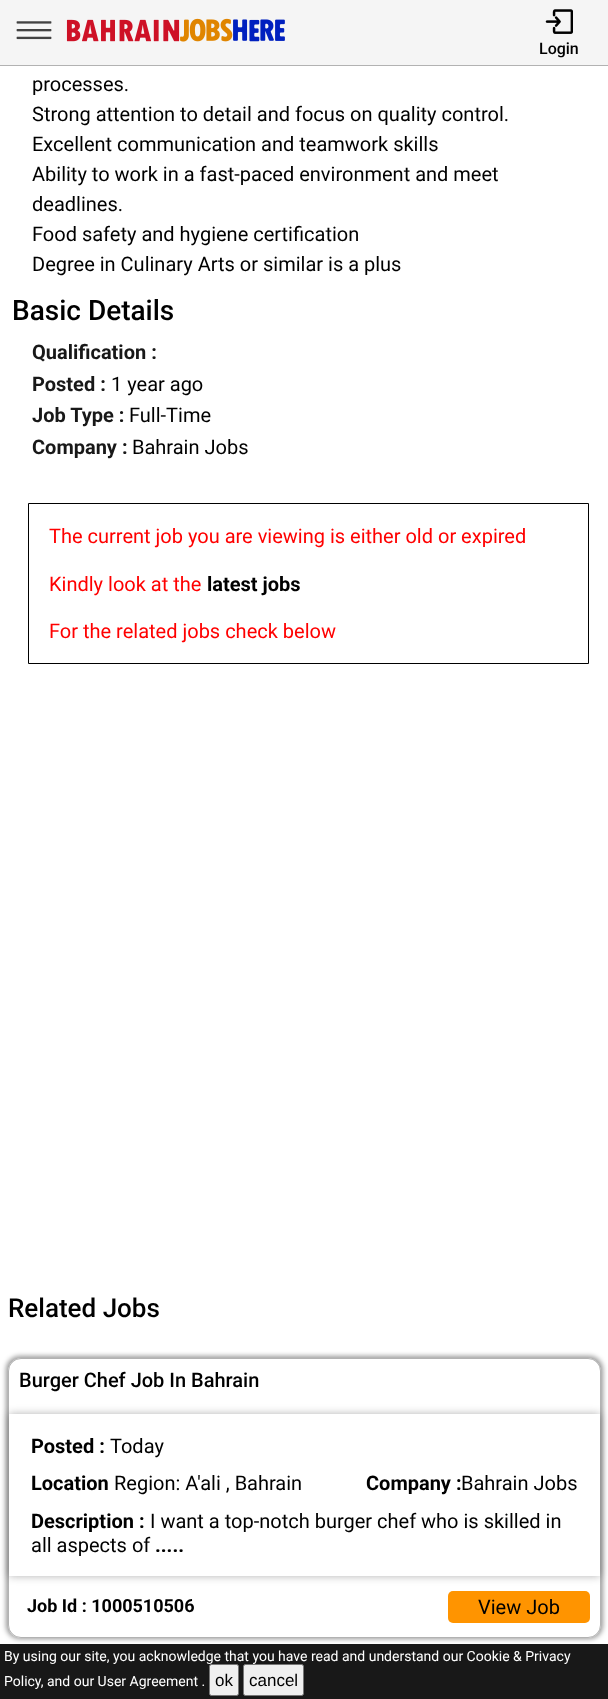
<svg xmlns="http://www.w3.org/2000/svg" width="608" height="1699">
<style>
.a{font:500 16px Roboto;fill:#000}
.b{font:20px Roboto;fill:#000}
.c{font:500 28px Roboto;fill:#000}
.d{font:bold 20px Roboto;fill:#181818}
.e{font:20px Roboto;fill:#f00}
.f{font:bold 20px Roboto;fill:#000}
.g{font:500 26px Roboto;fill:#000}
.h{font:500 20px Roboto;fill:#000}
.i{font:bold 18px Roboto;fill:#000}
.j{font:14px Roboto;fill:#fff}
.k{font:17px Liberation Sans;fill:#000}
</style>
<defs>
<clipPath id="clip1"><path d="M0 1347h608v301h-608zm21 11h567c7 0 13 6 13 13v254c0 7-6 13-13 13h-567c-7 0-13-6-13-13v-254c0-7 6-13 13-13z" clip-rule="evenodd"/></clipPath>
<clipPath id="clip2"><path d="M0 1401h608v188h-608zm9 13h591v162h-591z" clip-rule="evenodd"/></clipPath>
</defs>
<rect width="100%" height="100%" fill="#fff"/>
<path fill="#0000004d" filter="blur(0.5px)" d="M0 0h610v66H0z"/>
<path fill="#f5f5f5" d="M0 0h608v65H0z"/>
<image href="1.png" x="16" y="21" width="36" height="19"/>
<image href="2.png" x="66" y="18" width="219" height="24"/>
<image href="3.png" x="545" y="9" width="28" height="25"/>
<path fill="none" stroke="#000" d="M28.5 503.5h560v160H28.5z"/>
<g clip-path="url(#clip1)">
<rect fill="#00000066" filter="blur(2.5px)" x="6" y="1356" width="597" height="283" rx="14"/>
</g>
<rect fill="none" stroke="#0000004d" x="8.5" y="1358.5" width="592" height="279" rx="12.5"/>
<g clip-path="url(#clip2)">
<path fill="#0000004d" filter="blur(4px)" d="M9 1414h591v162H9z"/>
</g>
<rect fill="#ff9400" x="448" y="1591" width="142" height="32" rx="5"/>
<path fill="#181818" d="M0 1644h608v55H0z"/>
<rect fill="#efefef" stroke="#767676" x="209.5" y="1664.5" width="29" height="31" rx="2"/>
<rect fill="#efefef" stroke="#767676" x="243.5" y="1664.5" width="60" height="31" rx="2"/>
<text class="a" x="539" y="54">Login</text>
<text class="b" x="32" y="91">processes.</text>
<text class="b" x="32" y="121">Strong attention to detail and focus on quality control.</text>
<text class="b" x="32" y="151">Excellent communication and teamwork skills</text>
<text class="b" x="32" y="181">Ability to work in a fast-paced environment and meet</text>
<text class="b" x="32" y="211">deadlines.</text>
<text class="b" x="32" y="241">Food safety and hygiene certification</text>
<text class="b" x="32" y="271">Degree in Culinary Arts or similar is a plus</text>
<text class="c" x="12" y="320">Basic Details</text>
<text class="d" x="32" y="359">Qualification :</text>
<text class="d" x="32" y="391">Posted :</text>
<text class="b" x="111" y="391">1 year ago</text>
<text class="d" x="32" y="422">Job Type :</text>
<text class="b" x="129" y="422">Full-Time</text>
<text class="d" x="32" y="454">Company :</text>
<text class="b" x="132" y="454">Bahrain Jobs</text>
<text class="e" x="49" y="543">The current job you are viewing is either old or expired</text>
<text class="e" x="49" y="591">Kindly look at the</text>
<text class="f" x="207" y="591">latest jobs</text>
<text class="e" x="49" y="638">For the related jobs check below</text>
<text class="g" x="8" y="1317">Related Jobs</text>
<text class="h" x="19" y="1387">Burger Chef Job In Bahrain</text>
<text class="f" x="31" y="1453">Posted :</text>
<text class="b" x="110" y="1453">Today</text>
<text class="f" x="31" y="1490">Location</text>
<text class="b" x="114" y="1490">Region: A'ali , Bahrain</text>
<text class="f" x="366" y="1490">Company :</text>
<text class="b" x="461" y="1490">Bahrain Jobs</text>
<text class="f" x="31" y="1528">Description :</text>
<text class="b" x="150" y="1528">I want a top-notch burger chef who is skilled in</text>
<text class="b" x="31" y="1552">all aspects of</text>
<text class="f" x="155" y="1552">.....</text>
<text class="i" x="27" y="1612">Job Id : 1000510506</text>
<text class="b" x="478" y="1614">View Job</text>
<text class="j" x="4" y="1661">By using our site, you acknowledge that you have read and understand our Cookie &amp; Privacy</text>
<text class="j" x="4" y="1686">Policy, and our User Agreement .</text>
<text class="k" x="215" y="1686">ok</text>
<text class="k" x="249" y="1686">cancel</text>
</svg>
